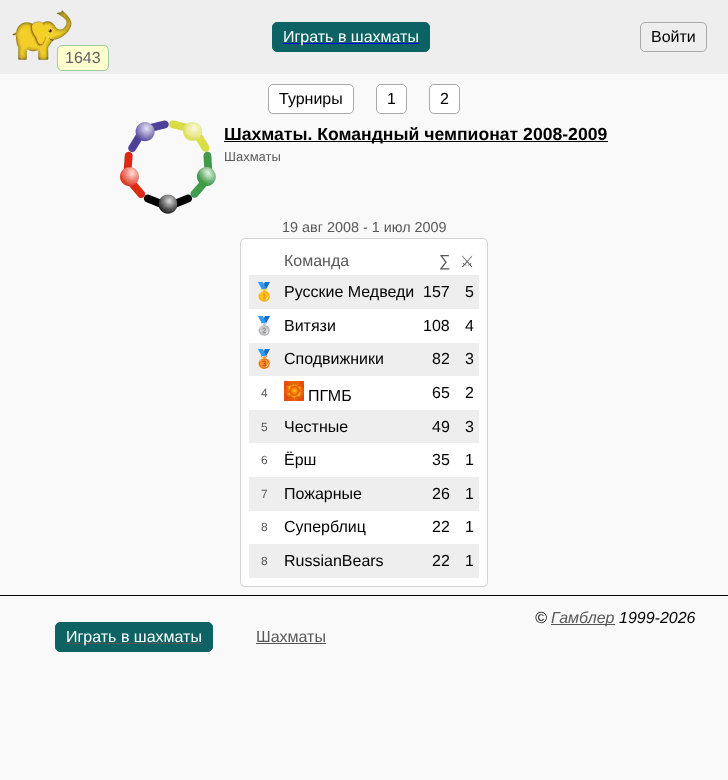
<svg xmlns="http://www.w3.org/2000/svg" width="728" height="780">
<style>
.a{font:16px Liberation Sans;fill:#fff}
.b{font:16px Liberation Sans;fill:#000}
.c{font:16px Liberation Sans;fill:#626262}
.d{font:bold 17.6px Liberation Sans;fill:#000}
.e{font:13px Liberation Sans;fill:#595959}
.f{font:14.4px Liberation Sans;fill:#595959}
.g{font:16px Liberation Sans;fill:#595959}
.h{font:16px DejaVu Sans;fill:#595959}
.i{font:18px Noto Color Emoji;fill:#595959}
.j{font:12px Liberation Sans;fill:#595959}
.k{font:italic 16px Liberation Sans;fill:#000}
.l{font:italic 16px Liberation Sans;fill:#595959}
</style>
<rect width="100%" height="100%" fill="#f9f9f9"/>
<path fill="#eee" d="M0 0h728v74H0z"/>
<rect fill="#0d6363" stroke="#0d6363" x="272.5" y="22.5" width="157" height="29" rx="4.5"/>
<path fill="#00e" d="M283 43h136v1H283z"/>
<rect fill="none" stroke="#a9a9a9" x="640.5" y="22.5" width="66" height="29" rx="4.5"/>
<image href="1.png" x="12" y="10" width="60" height="50"/>
<rect fill="#fefece" stroke="#9fce9f" x="57.5" y="45.5" width="51" height="25" rx="4.5"/>
<rect fill="#fff" stroke="#a9a9a9" x="268.5" y="84.5" width="85" height="29" rx="4.5"/>
<rect fill="#fff" stroke="#a9a9a9" x="376.5" y="84.5" width="30" height="29" rx="4.5"/>
<rect fill="#fff" stroke="#a9a9a9" x="429.5" y="84.5" width="30" height="29" rx="4.5"/>
<image href="2.png" x="120" y="120" width="96" height="94"/>
<path fill="#000" d="M224 141h384v1H224z"/>
<rect fill="#fff" stroke="#d3d3d3" x="240.5" y="238.5" width="247" height="348" rx="4.5"/>
<path fill="#eee" d="M249 275h230v34H249z"/>
<path fill="#eee" d="M249 343h230v33H249z"/>
<image href="3.png" x="284" y="381" width="20" height="20"/>
<path fill="#eee" d="M249 410h230v33H249z"/>
<path fill="#eee" d="M249 477h230v34H249z"/>
<path fill="#eee" d="M249 544h230v34H249z"/>
<path fill="#000" d="M0 595h728v1H0z"/>
<path fill="#555" d="M551 624h64v1H551z"/>
<rect fill="#0d6363" stroke="#0d6363" x="55.5" y="622.5" width="157" height="29" rx="4.5"/>
<path fill="#555" d="M66 643h136v1H66z"/>
<path fill="#555" d="M256 643h70v1H256z"/>
<text class="a" x="283" y="42">Играть в шахматы</text>
<text class="b" x="651" y="42">Войти</text>
<text class="c" x="65" y="63">1643</text>
<text class="b" x="279" y="104">Турниры</text>
<text class="b" x="387" y="104">1</text>
<text class="b" x="440" y="104">2</text>
<text class="d" x="224" y="140">Шахматы. Командный чемпионат 2008-2009</text>
<text class="e" x="224" y="161">Шахматы</text>
<text class="f" x="282" y="232">19 авг 2008 - 1 июл 2009</text>
<text class="g" x="284" y="266">Команда</text>
<text class="g" x="439" y="266">∑</text>
<text class="h" x="460" y="267">⚔</text>
<text class="i" x="253" y="298">🥇</text>
<text class="b" x="284" y="297">Русские Медведи</text>
<text class="b" x="423" y="297">157</text>
<text class="b" x="465" y="297">5</text>
<text class="i" x="253" y="332">🥈</text>
<text class="b" x="284" y="331">Витязи</text>
<text class="b" x="423" y="331">108</text>
<text class="b" x="465" y="331">4</text>
<text class="i" x="253" y="365">🥉</text>
<text class="b" x="284" y="364">Сподвижники</text>
<text class="b" x="432" y="364">82</text>
<text class="b" x="465" y="364">3</text>
<text class="j" x="261" y="397">4</text>
<text class="b" x="308" y="401">ПГМБ</text>
<text class="b" x="432" y="398">65</text>
<text class="b" x="465" y="398">2</text>
<text class="j" x="261" y="431">5</text>
<text class="b" x="284" y="432">Честные</text>
<text class="b" x="432" y="432">49</text>
<text class="b" x="465" y="432">3</text>
<text class="j" x="261" y="464">6</text>
<text class="b" x="284" y="465">Ёрш</text>
<text class="b" x="432" y="465">35</text>
<text class="b" x="465" y="465">1</text>
<text class="j" x="261" y="498">7</text>
<text class="b" x="284" y="499">Пожарные</text>
<text class="b" x="432" y="499">26</text>
<text class="b" x="465" y="499">1</text>
<text class="j" x="261" y="531">8</text>
<text class="b" x="284" y="532">Суперблиц</text>
<text class="b" x="432" y="532">22</text>
<text class="b" x="465" y="532">1</text>
<text class="j" x="261" y="565">8</text>
<text class="b" x="284" y="566">RussianBears</text>
<text class="b" x="432" y="566">22</text>
<text class="b" x="465" y="566">1</text>
<text class="k" x="535" y="623">©</text>
<text class="l" x="551" y="623">Гамблер</text>
<text class="k" x="619" y="623">1999-2026</text>
<text class="a" x="66" y="642">Играть в шахматы</text>
<text class="g" x="256" y="642">Шахматы</text>
</svg>
